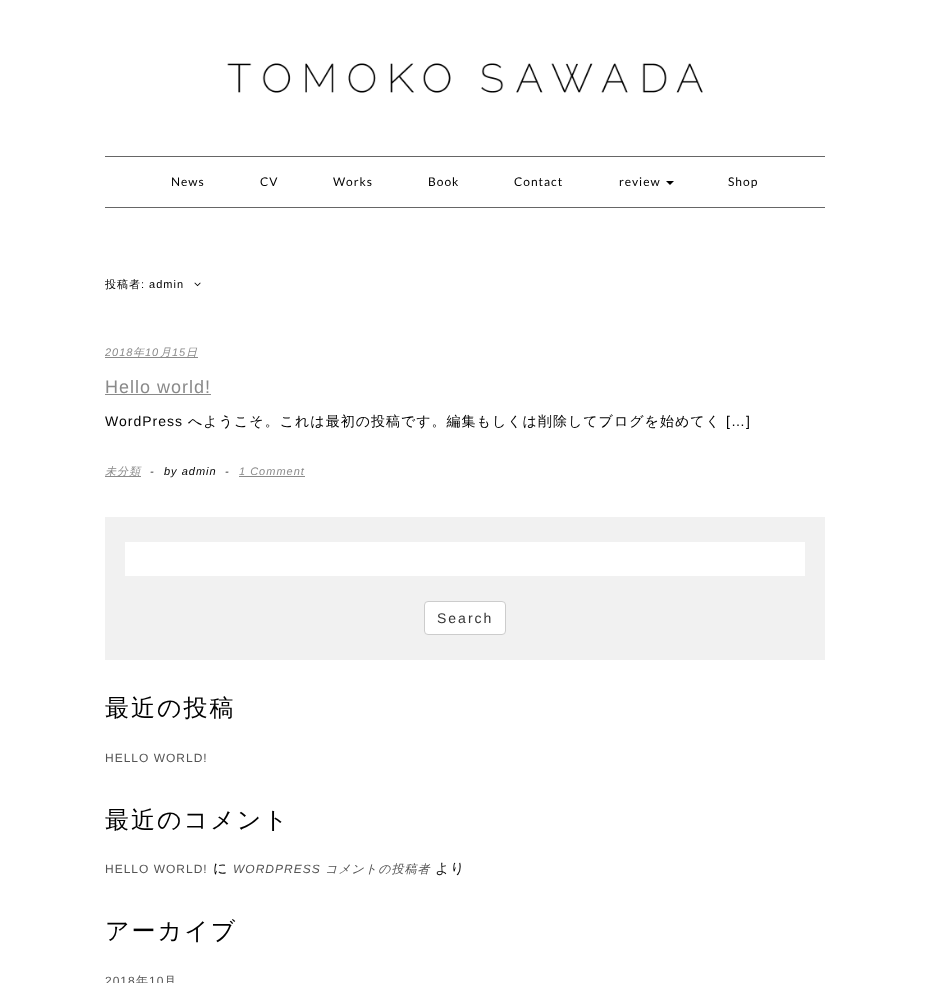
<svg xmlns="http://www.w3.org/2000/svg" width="930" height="983">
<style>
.a{font:12px Lato;letter-spacing:1px;fill:#000}
.b{font:500 11px WenQuanYi Zen Hei;letter-spacing:1px;fill:#000}
.c{font:11px Liberation Sans;letter-spacing:1px;fill:#000}
.d{font:italic 11px Liberation Sans;letter-spacing:1px;fill:#8a8a8a}
.e{font:italic 500 11px WenQuanYi Zen Hei;letter-spacing:1px;fill:#8a8a8a}
.f{font:18px Liberation Sans;letter-spacing:1px;fill:#8a8a8a}
.g{font:14px Liberation Sans;letter-spacing:1px;fill:#000}
.h{font:500 14px WenQuanYi Zen Hei;letter-spacing:1px;fill:#000}
.i{font:italic 11px Liberation Sans;letter-spacing:1px;fill:#000}
.j{font:14px Liberation Sans;letter-spacing:2px;fill:#333}
.k{font:500 24px WenQuanYi Zen Hei;letter-spacing:2px;fill:#000}
.l{font:12px Liberation Sans;letter-spacing:1px;fill:#545454}
.m{font:italic 12px Liberation Sans;letter-spacing:1px;fill:#545454}
.n{font:italic 500 12px WenQuanYi Zen Hei;letter-spacing:1px;fill:#545454}
.o{font:500 12px WenQuanYi Zen Hei;letter-spacing:1px;fill:#545454}
</style>
<rect width="100%" height="100%" fill="#fff"/>
<image href="1.png" x="227" y="63" width="476" height="30"/>
<path fill="#666" d="M105 156h720v1H105z"/>
<path fill="#666" d="M105 207h720v1H105z"/>
<path fill="#000" d="M666 181h8l-4 4z"/>
<image href="2.png" x="194" y="282" width="7" height="5"/>
<path fill="#8a8a8a" d="M105 357h93v1H105z"/>
<path fill="#8a8a8a" d="M105 394h106v1H105z"/>
<path fill="#8a8a8a" d="M105 476h36v1H105z"/>
<path fill="#8a8a8a" d="M239 476h66v1H239z"/>
<path fill="#f1f1f1" d="M105 517h720v143H105z"/>
<path fill="#fff" d="M125 542h680v34H125z"/>
<rect fill="#fff" stroke="#ccc" x="424.5" y="601.5" width="81" height="33" rx="3.5"/>
<text class="a" x="171" y="186">News</text>
<text class="a" x="260" y="186">CV</text>
<text class="a" x="333" y="186">Works</text>
<text class="a" x="428" y="186">Book</text>
<text class="a" x="514" y="186">Contact</text>
<text class="a" x="619" y="186">review</text>
<text class="a" x="728" y="186">Shop</text>
<text class="b" x="105" y="288">投稿者</text>
<text class="c" x="141" y="288">: admin</text>
<text class="d" x="105" y="356">2018</text>
<text class="e" x="133" y="356">年</text>
<text class="d" x="145" y="356">10</text>
<text class="e" x="160" y="356">月</text>
<text class="d" x="172" y="356">15</text>
<text class="e" x="186" y="356">日</text>
<text class="f" x="105" y="393">Hello world!</text>
<text class="g" x="105" y="426">WordPress</text>
<text class="h" x="188" y="426">へようこそ。これは最初の投稿です。編集もしくは削除してブログを始めてく</text>
<text class="g" x="726" y="426">[…]</text>
<text class="e" x="105" y="475">未分類</text>
<text class="i" x="150" y="475">-</text>
<text class="i" x="164" y="475">by admin</text>
<text class="i" x="225" y="475">-</text>
<text class="d" x="239" y="475">1 Comment</text>
<text class="j" x="437" y="623">Search</text>
<text class="k" x="105" y="716">最近の投稿</text>
<text class="l" x="105" y="762">HELLO WORLD!</text>
<text class="k" x="105" y="828">最近のコメント</text>
<text class="l" x="105" y="873">HELLO WORLD!</text>
<text class="h" x="213" y="873">に</text>
<text class="m" x="233" y="873">WORDPRESS</text>
<text class="n" x="325" y="873">コメントの投稿者</text>
<text class="h" x="435" y="873">より</text>
<text class="k" x="105" y="939">アーカイブ</text>
<text class="l" x="105" y="985">2018</text>
<text class="o" x="136" y="985">年</text>
<text class="l" x="149" y="985">10</text>
<text class="o" x="164" y="985">月</text>
</svg>
